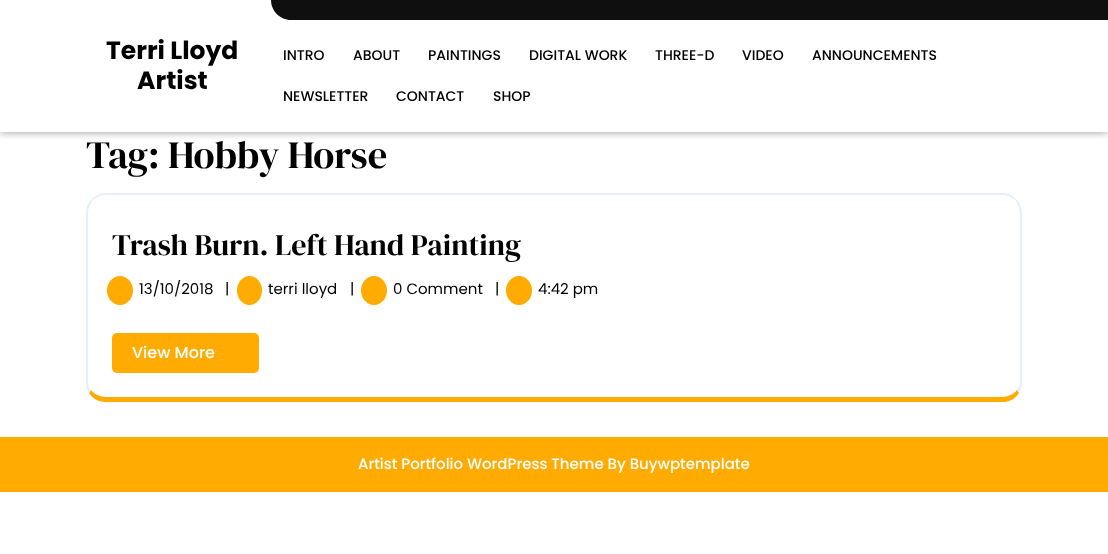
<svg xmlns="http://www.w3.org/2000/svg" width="1108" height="554">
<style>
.a{font:bold 25px Poppins;fill:#000}
.b{font:500 14px Poppins;fill:#000}
.c{font:38.5px DM Serif Display;fill:#000}
.d{font:30px DM Serif Display;fill:#000}
.e{font:15px Poppins;fill:#000}
.f{font:500 16px Poppins;fill:#fff}
.g{font:500 15px Poppins;fill:#fff}
</style>
<defs>
<clipPath id="clip1"><path d="M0 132h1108v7H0z"/></clipPath>
</defs>
<rect width="100%" height="100%" fill="#fff"/>
<g clip-path="url(#clip1)">
<path fill="#0000006b" filter="blur(4px)" d="M0 0h1108v132H0z"/>
</g>
<path fill="#0f0f0f" d="M271 0h837v20h-817c-11 0-20-9-20-20z"/>
<path fill="#e6f0fa" d="M106 193c-6 0-10 2-14 6l1 1c3-3 8-5 13-5h896c5 0 10 2 13 5l1-1c-4-4-8-6-14-6z"/>
<path fill="#e6f0fa" d="M1022 382v-169c0-5-2-11-6-14l-1 1c3 4 5 8 5 13v169c0 3-1 6-3 8l2 3c2-3 3-7 3-11z"/>
<path fill="#ffab01" d="M106 402h896c7 0 13-3 17-9l-2-3c-3 4-9 7-15 7h-896c-6 0-12-3-15-7l-2 3c4 6 10 9 17 9z"/>
<path fill="#e6f0fa" d="M86 213v169c0 4 1 8 3 11l2-3c-2-2-3-5-3-8v-169c0-5 2-9 5-13l-1-1c-4 3-6 9-6 14z"/>
<ellipse fill="#ffab01" cx="120" cy="290.5" rx="13" ry="14.5"/>
<ellipse fill="#ffab01" cx="249.5" cy="290.5" rx="12.5" ry="14.5"/>
<ellipse fill="#ffab01" cx="374" cy="290.5" rx="13" ry="14.5"/>
<ellipse fill="#ffab01" cx="519" cy="290.5" rx="13" ry="14.5"/>
<rect fill="#ffab01" x="112" y="333" width="147" height="40" rx="5"/>
<path fill="#ffab01" d="M0 437h1108v55H0z"/>
<text class="a" x="106" y="59">Terri Lloyd</text>
<text class="a" x="137" y="89">Artist</text>
<text class="b" x="283" y="60">INTRO</text>
<text class="b" x="353" y="60">ABOUT</text>
<text class="b" x="428" y="60">PAINTINGS</text>
<text class="b" x="529" y="60">DIGITAL WORK</text>
<text class="b" x="655" y="60">THREE-D</text>
<text class="b" x="742" y="60">VIDEO</text>
<text class="b" x="812" y="60">ANNOUNCEMENTS</text>
<text class="b" x="283" y="101">NEWSLETTER</text>
<text class="b" x="396" y="101">CONTACT</text>
<text class="b" x="493" y="101">SHOP</text>
<text class="c" x="86" y="168">Tag: Hobby Horse</text>
<text class="d" x="112" y="255">Trash Burn. Left Hand Painting</text>
<text class="e" x="139" y="294">13/10/2018</text>
<text class="e" x="225" y="294">|</text>
<text class="e" x="268" y="294">terri lloyd</text>
<text class="e" x="350" y="294">|</text>
<text class="e" x="393" y="294">0 Comment</text>
<text class="e" x="495" y="294">|</text>
<text class="e" x="538" y="294">4:42 pm</text>
<text class="f" x="132" y="358">View More</text>
<text class="g" x="358" y="469">Artist Portfolio WordPress Theme By Buywptemplate</text>
</svg>
